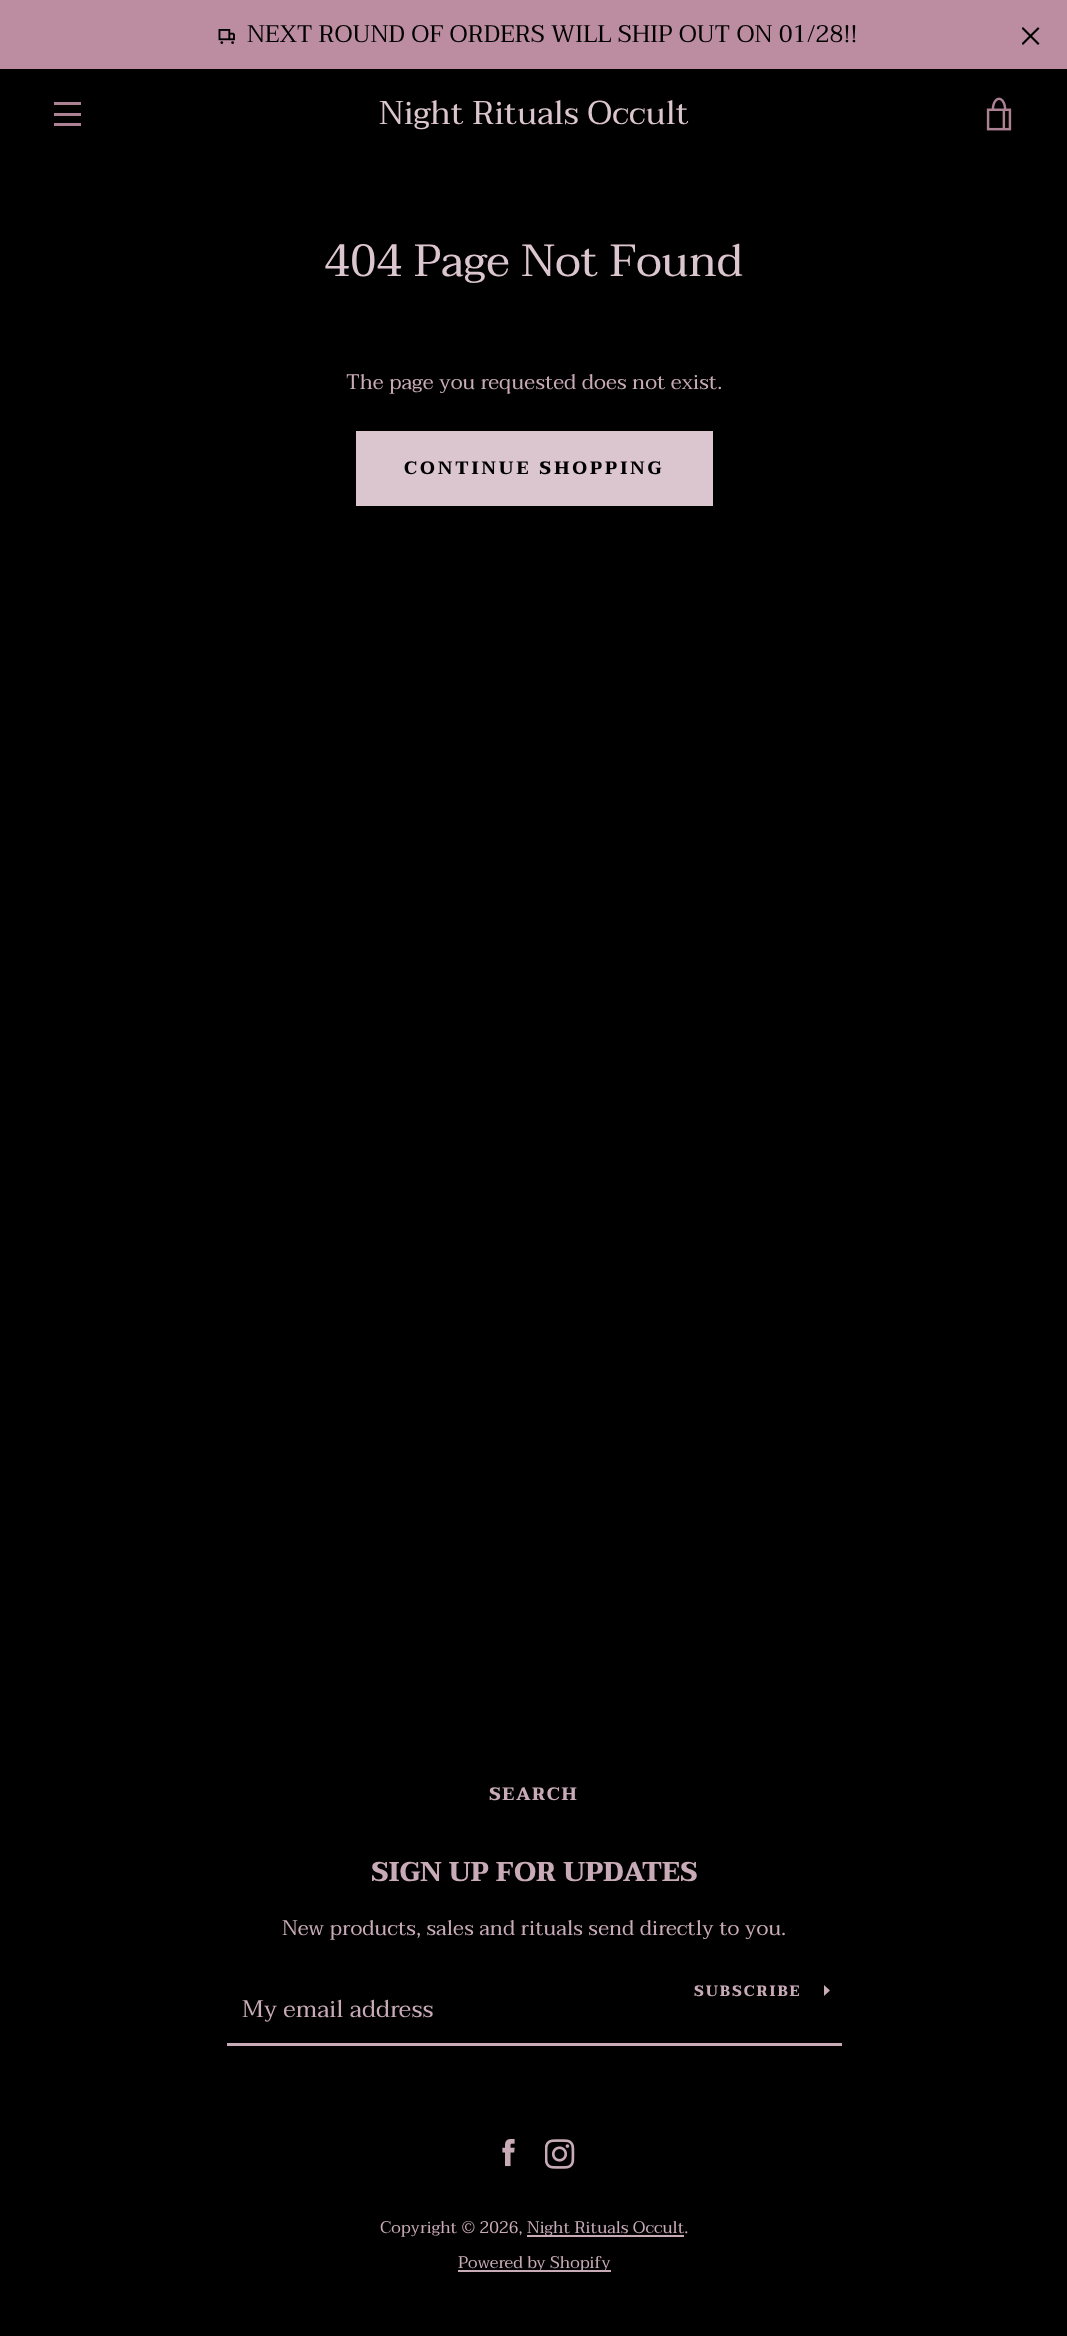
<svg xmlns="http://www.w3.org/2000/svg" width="1067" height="2336">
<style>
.a{font:24px Taviraj;fill:#000}
.b{font:33px Taviraj;fill:#dbc5ce}
.c{font:45px Taviraj;fill:#dbc5ce}
.d{font:21px Taviraj;fill:#c8abb7}
.e{font:bold 18px Taviraj;letter-spacing:3px;fill:#000}
.f{font:bold 18px Taviraj;letter-spacing:1.5px;fill:#c8abb7}
.g{font:bold 27px Taviraj;fill:#c8abb7}
.h{font:bold 15px Taviraj;letter-spacing:1.9px;fill:#c8abb7}
.i{font:24px Taviraj;fill:#c8abb7}
.j{font:16.75px Taviraj;fill:#c8abb7}
</style>
<rect width="100%" height="100%" fill="#000"/>
<path fill="#bc8da1" d="M0 0h1067v69H0z"/>
<image href="1.png" x="218" y="29" width="17" height="15"/>
<image href="2.png" x="1022" y="27" width="18" height="18"/>
<path fill="#ac8193" d="M54 102h27v3H54z"/>
<path fill="#ac8193" d="M54 113h27v3H54z"/>
<path fill="#ac8193" d="M54 123h27v3H54z"/>
<image href="3.png" x="986" y="97" width="26" height="34"/>
<path fill="#dbc5ce" d="M356 431h357v75H356z"/>
<path fill="#c8abb7" d="M227 2043h615v3H227z"/>
<path fill="#c8abb7" d="M830 1990.5l-6 5.5v-11z"/>
<image href="4.png" x="502" y="2139" width="13" height="28"/>
<image href="5.png" x="545" y="2139" width="30" height="30"/>
<path fill="#c8abb7" d="M527 2235h157v2H527z"/>
<path fill="#c8abb7" d="M458 2270h153v2H458z"/>
<text class="a" x="247" y="42">NEXT ROUND OF ORDERS WILL SHIP OUT ON 01/28!!</text>
<text class="b" x="379" y="124">Night Rituals Occult</text>
<text class="c" x="324" y="276">404 Page Not Found</text>
<text class="d" x="346" y="389">The page you requested does not exist.</text>
<text class="e" x="404" y="474">CONTINUE SHOPPING</text>
<text class="f" x="489" y="1800">SEARCH</text>
<text class="g" x="371" y="1881">SIGN UP FOR UPDATES</text>
<text class="d" x="282" y="1935">New products, sales and rituals send directly to you.</text>
<text class="h" x="694" y="1996">SUBSCRIBE</text>
<text class="i" x="242" y="2017">My email address</text>
<text class="j" x="380" y="2233">Copyright © 2026,</text>
<text class="j" x="527" y="2233">Night Rituals Occult.</text>
<text class="j" x="458" y="2268">Powered by Shopify</text>
</svg>
